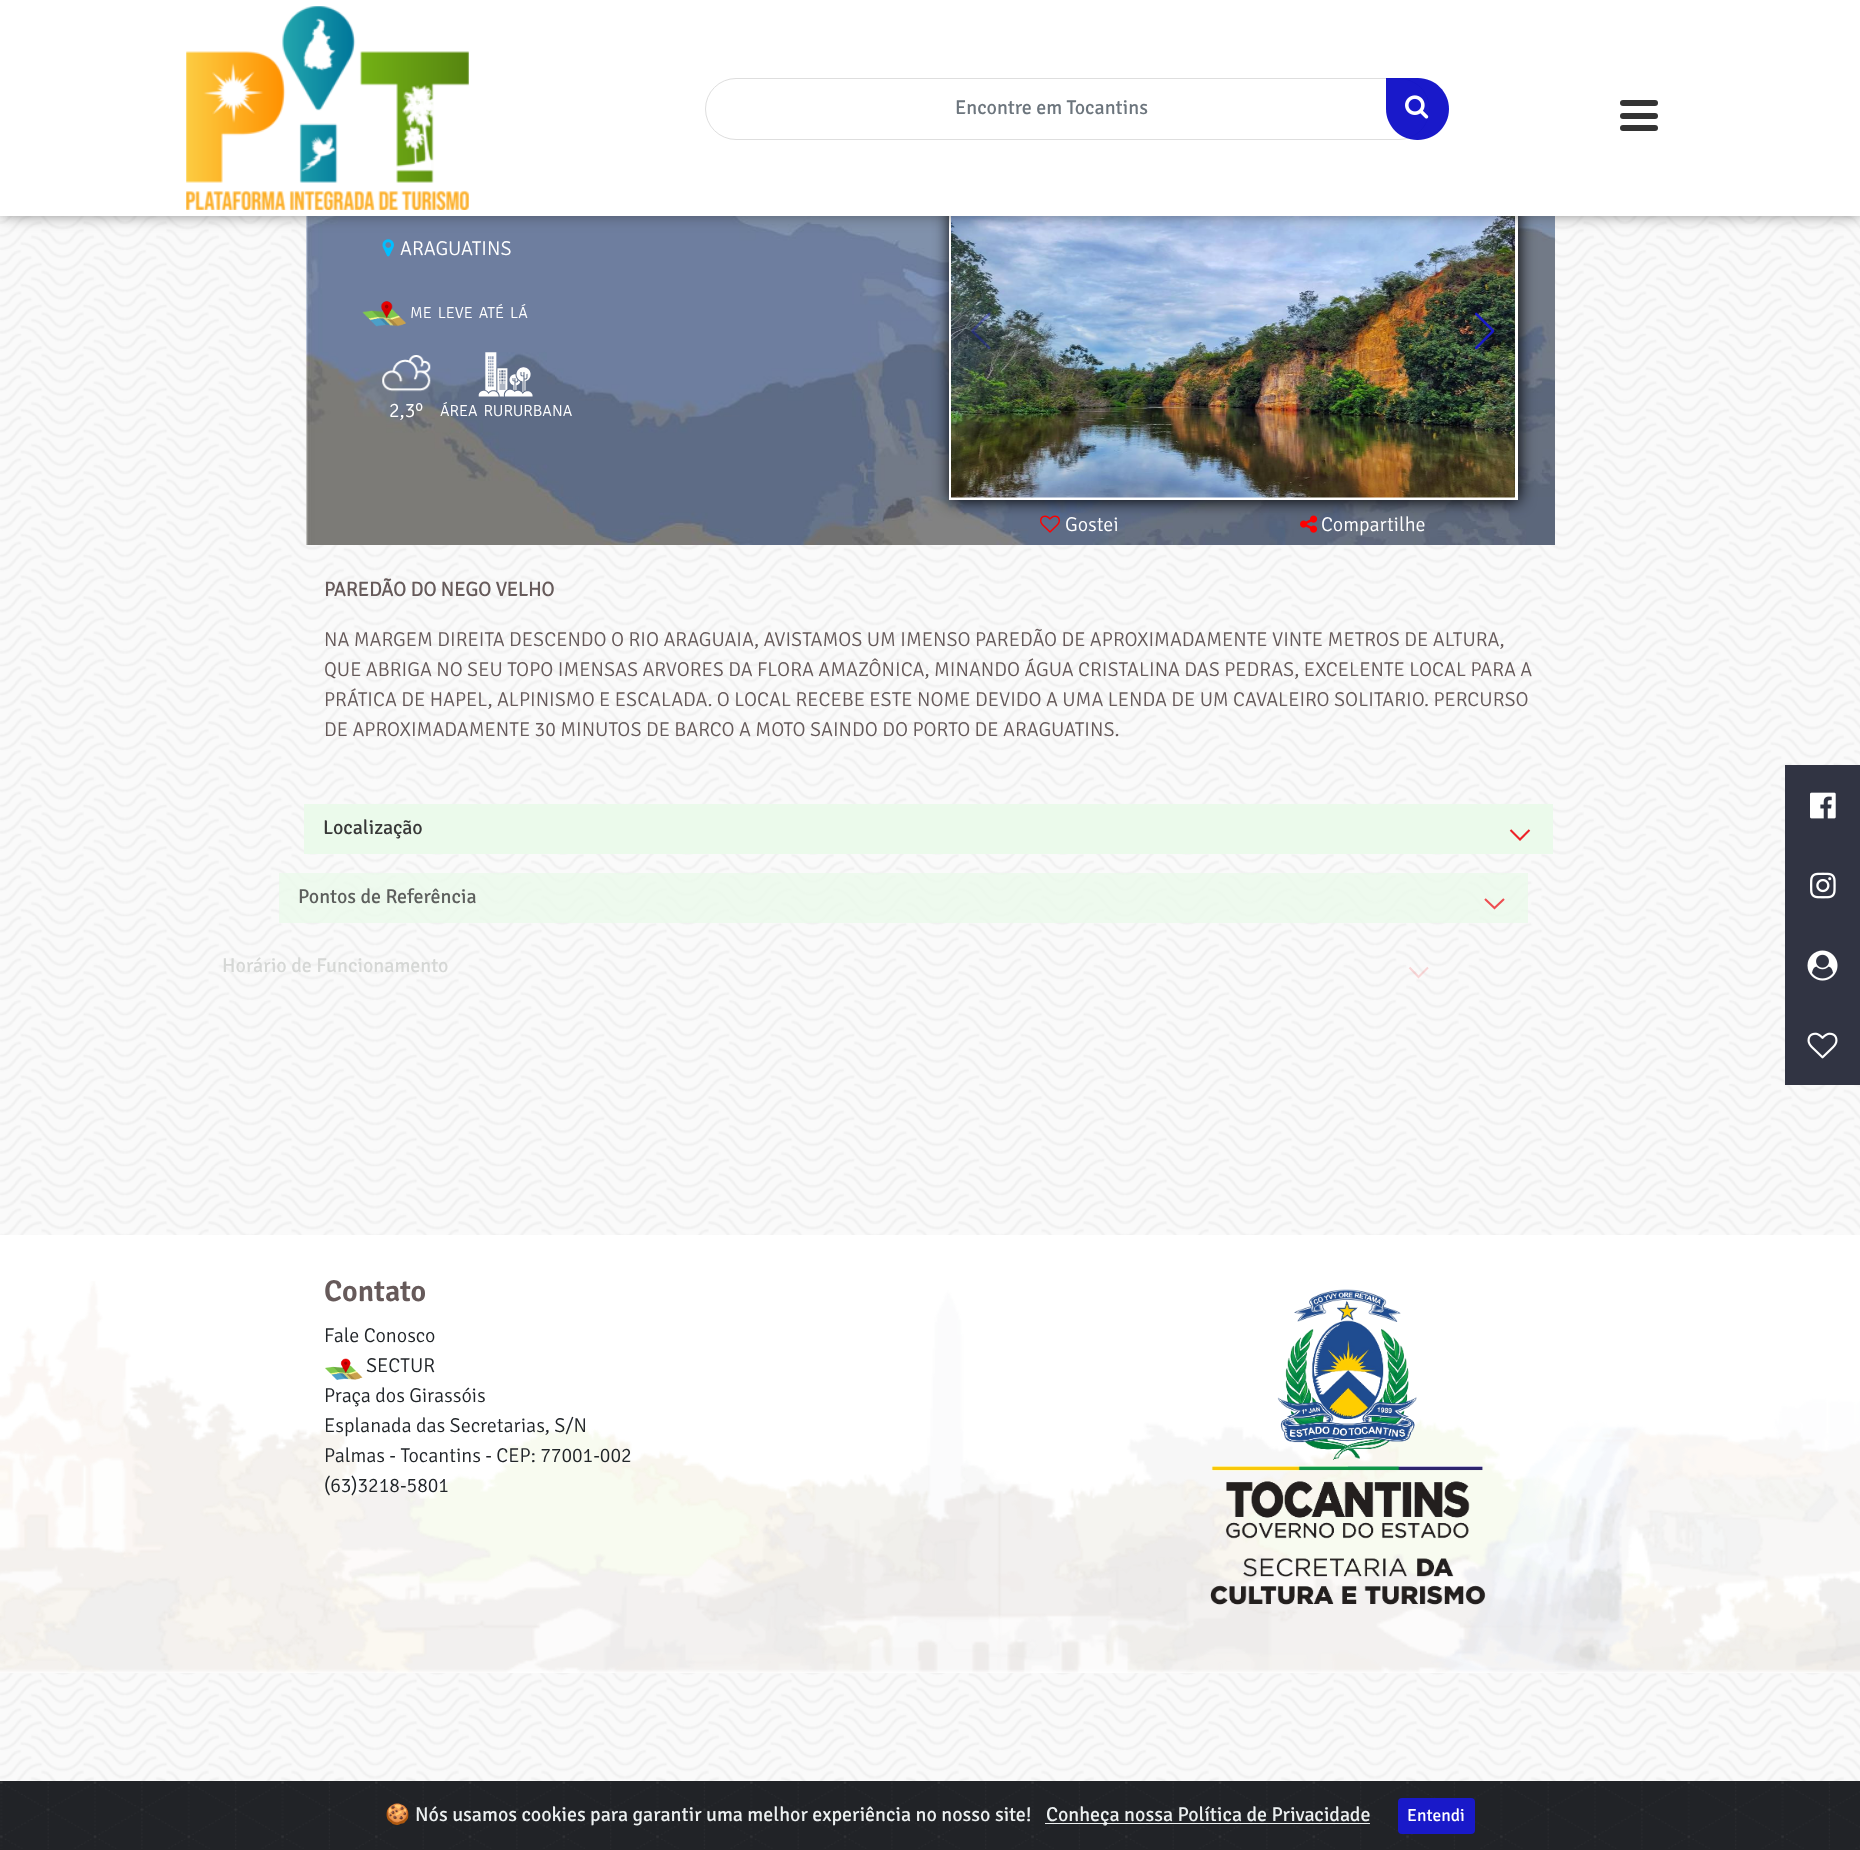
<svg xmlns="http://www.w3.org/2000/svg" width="1860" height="1850">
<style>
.a{font:20px Signika;fill:#6c757d}
.b{font:300 20px Signika;fill:#fff}
.c{font:300 16px Signika;fill:#fff}
.d{font:bold 20px Signika;fill:#665a5a}
.e{font:300 20px Signika;fill:#665a5a}
.f{font:20px Signika;fill:#373737}
.g{font:20px Signika;fill:#5d5f5d}
.h{font:20px Signika;fill:#d5d7d5}
.i{font:600 30px Signika;fill:#665a5a}
.j{font:300 20px Signika;fill:#212529}
.k{font:20px Noto Color Emoji;fill:#ecf0f1}
.l{font:20px Signika;fill:#ecf0f1}
.m{font:17.5px Signika;fill:#fff}
</style>
<rect width="100%" height="100%" fill="#fff"/>
<image href="1.png" x="0" y="216" width="1860" height="1565"/>
<image href="4.png" x="306" y="216" width="1249" height="329"/>
<image href="12.png" x="1040" y="515" width="20" height="18"/>
<image href="13.png" x="1300" y="515" width="18" height="18"/>
<path fill="#000" filter="blur(8px)" d="M950 164h569v337H950z"/>
<path fill="none" stroke="#fff" stroke-width="3" d="M950.5 164.5h566v334H950.5z"/>
<image href="9.png" x="951" y="216" width="564" height="282"/>
<path fill="#333" filter="blur(9px)" d="M1 -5h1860v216H1z"/>
<path fill="#fff" d="M0 0h1860v216H0z"/>
<image href="2.png" x="186" y="6" width="283" height="204"/>
<rect fill="none" stroke="#dedede" x="705.5" y="78.5" width="724" height="61" rx="30.5"/>
<path fill="#0000c4e6" d="M1386 78h32c17 0 31 14 31 31c0 17-14 31-31 31h-1c-17 0-31-14-31-31z"/>
<image href="3.png" x="1405" y="95" width="24" height="24"/>
<rect fill="#333" x="1620" y="100" width="38" height="6" rx="3"/>
<rect fill="#333" x="1620" y="113" width="38" height="6" rx="3"/>
<rect fill="#333" x="1620" y="125" width="38" height="6" rx="3"/>
<image href="5.png" x="382" y="239" width="12" height="18"/>
<image href="6.png" x="362" y="301" width="44" height="26"/>
<image href="7.png" x="382" y="355" width="49" height="37"/>
<image href="8.png" x="478" y="352" width="55" height="45"/>
<image href="10.png" x="971" y="312" width="20" height="38"/>
<image href="11.png" x="1474" y="312" width="21" height="38"/>
<path fill="#ebfaebfa" d="M304 804h1249v50H304z"/>
<path fill="none" stroke="#ed2228" stroke-width="2.1" d="M1529.5 830l-9.5 9.5l-9.5-9.5"/>
<path fill="#ebfaebc7" d="M279 873h1249v50H279z"/>
<path fill="none" stroke="#ed4e51" stroke-width="2.1" d="M1504 899l-9.5 9l-9.5-9"/>
<path fill="none" stroke="#ed1d242b" stroke-width="2.1" d="M1428 967.5l-9.5 9.5l-9-9.5"/>
<path fill="#313443" d="M1785 765h75v320H1785z"/>
<image href="14.png" x="1810" y="792" width="26" height="27"/>
<image href="15.png" x="1810" y="872" width="26" height="27"/>
<image href="16.png" x="1807" y="950" width="31" height="31"/>
<image href="17.png" x="1807" y="1032" width="31" height="27"/>
<path fill="#fff" d="M0 1235h1860v438H0z"/>
<image href="18.png" x="0" y="1281" width="1860" height="392"/>
<image href="19.png" x="325" y="1358" width="38" height="22"/>
<image href="20.png" x="1210" y="1289" width="276" height="316"/>
<path fill="#212327" d="M0 1781h1860v69H0z"/>
<image href="21.png" x="0" y="1781" width="1860" height="68"/>
<path fill="#ecf0f1" d="M1045 1823h325v1H1045z"/>
<rect fill="#1919c9" x="1398" y="1798" width="77" height="36" rx="4"/>
<text class="a" x="955" y="114">Encontre em Tocantins</text>
<text class="b" x="400" y="255">ARAGUATINS</text>
<text class="c" x="410" y="318" word-spacing="2.5">ME LEVE ATÉ LÁ</text>
<text class="b" x="389" y="417">2,3º</text>
<text class="c" x="440" y="416" word-spacing="2.5">ÁREA RURURBANA</text>
<text class="b" x="1065" y="531">Gostei</text>
<text class="b" x="1321" y="531">Compartilhe</text>
<text class="d" x="324" y="596">PAREDÃO DO NEGO VELHO</text>
<text class="e" x="324" y="646">NA MARGEM DIREITA DESCENDO O RIO ARAGUAIA, AVISTAMOS UM IMENSO PAREDÃO DE APROXIMADAMENTE VINTE METROS DE ALTURA,</text>
<text class="e" x="324" y="676">QUE ABRIGA NO SEU TOPO IMENSAS ARVORES DA FLORA AMAZÔNICA, MINANDO ÁGUA CRISTALINA DAS PEDRAS, EXCELENTE LOCAL PARA A</text>
<text class="e" x="324" y="706">PRÁTICA DE HAPEL, ALPINISMO E ESCALADA. O LOCAL RECEBE ESTE NOME DEVIDO A UMA LENDA DE UM CAVALEIRO SOLITARIO. PERCURSO</text>
<text class="e" x="324" y="736">DE APROXIMADAMENTE 30 MINUTOS DE BARCO A MOTO SAINDO DO PORTO DE ARAGUATINS.</text>
<text class="f" x="323" y="834">Localização</text>
<text class="g" x="298" y="903">Pontos de Referência</text>
<text class="h" x="222" y="972">Horário de Funcionamento</text>
<text class="i" x="324" y="1301">Contato</text>
<text class="j" x="324" y="1342">Fale Conosco</text>
<text class="j" x="366" y="1372">SECTUR</text>
<text class="j" x="324" y="1402">Praça dos Girassóis</text>
<text class="j" x="324" y="1432">Esplanada das Secretarias, S/N</text>
<text class="j" x="324" y="1462">Palmas - Tocantins - CEP: 77001-002</text>
<text class="j" x="324" y="1492">(63)3218-5801</text>
<text class="k" x="385" y="1821">🍪</text>
<text class="l" x="415" y="1821">Nós usamos cookies para garantir uma melhor experiência no nosso site!</text>
<text class="l" x="1046" y="1821">Conheça nossa Política de Privacidade</text>
<text class="m" x="1407" y="1821">Entendi</text>
</svg>
